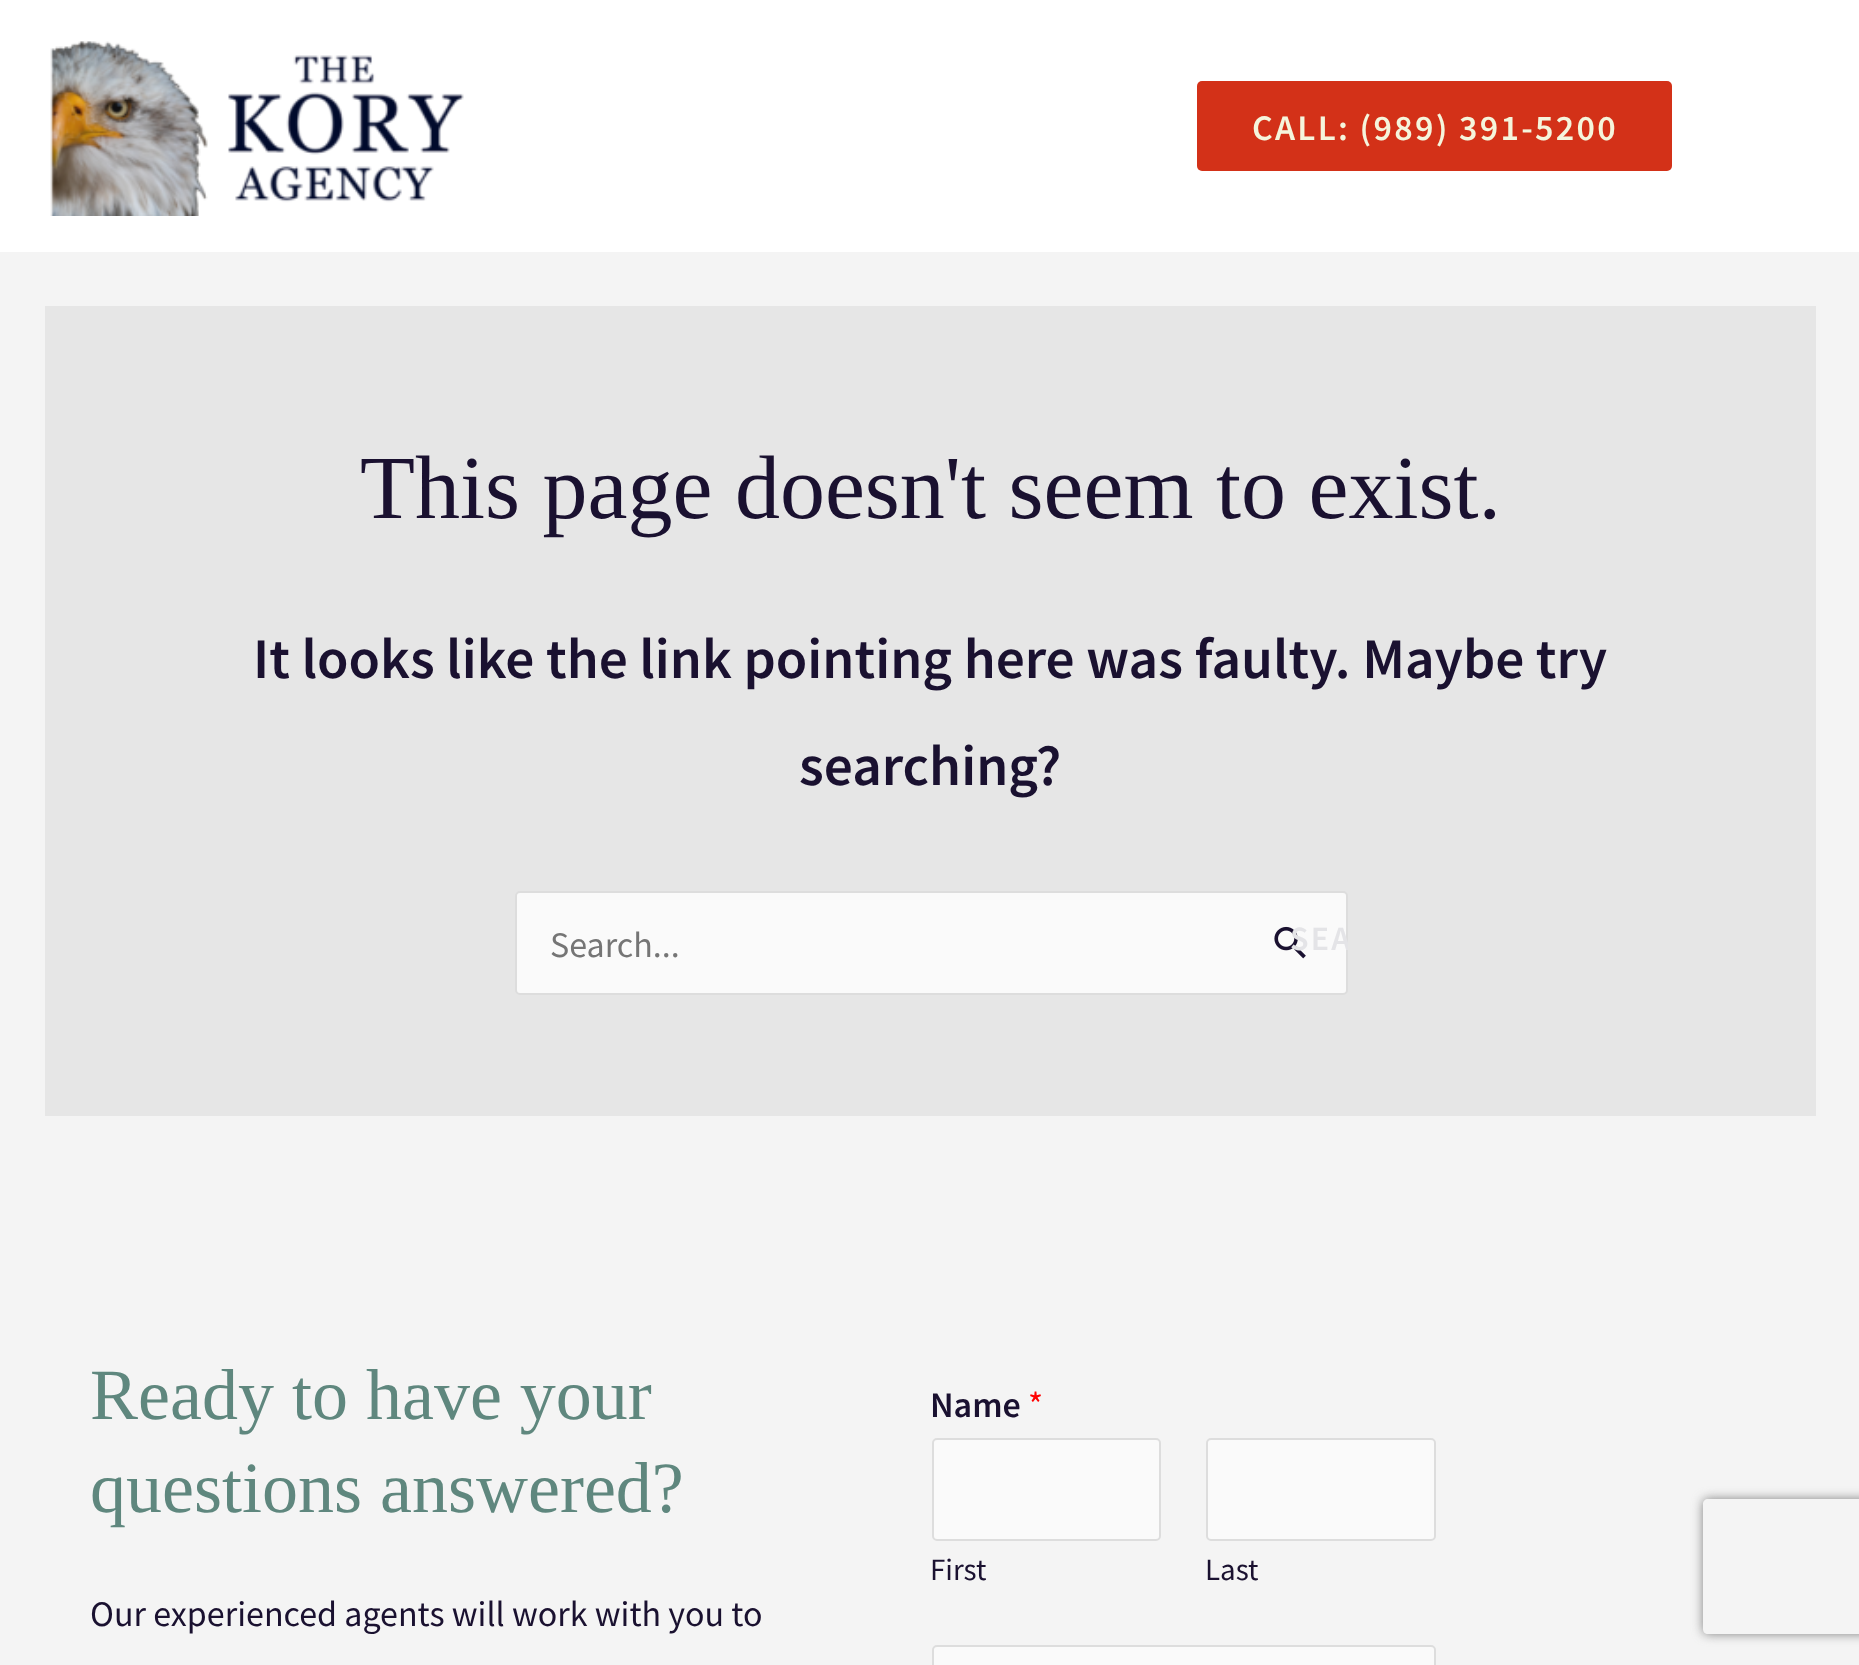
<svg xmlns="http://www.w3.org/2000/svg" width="1859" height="1665">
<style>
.a{font:600 36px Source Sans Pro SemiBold;letter-spacing:2.25px;fill:#f5f5dc}
.b{font:90px Liberation Serif;fill:#1a1130}
.c{font:600 57.4px Source Sans Pro SemiBold;fill:#1a1130}
.d{font:36px Source Sans Pro;fill:#757575}
.e{font:600 34px Source Sans Pro SemiBold;letter-spacing:2.25px;fill:#e4e4e7}
.f{font:72px Liberation Serif;fill:#5f877e}
.g{font:36px Source Sans Pro;fill:#1a1130}
.h{font:600 36px Source Sans Pro SemiBold;fill:#1a1130}
.i{font:36px Source Sans Pro;fill:#f00}
.j{font:31px Source Sans Pro;fill:#1a1130}
</style>
<defs>
<clipPath id="clip1"><path d="M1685 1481h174v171h-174zm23 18h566c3 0 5 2 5 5v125c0 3-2 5-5 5h-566c-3 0-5-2-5-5v-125c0-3 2-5 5-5z" clip-rule="evenodd"/></clipPath>
<clipPath id="clip2"><rect x="1247" y="891" width="101" height="92" rx="5"/></clipPath>
</defs>
<rect width="100%" height="100%" fill="#f4f4f4"/>
<path fill="#fff" d="M0 0h1859v252H0z"/>
<image href="1.png" x="50" y="41" width="414" height="175"/>
<rect fill="#d33118" x="1197" y="81" width="475" height="90" rx="5"/>
<path fill="#e6e6e6" d="M45 306h1771v810H45z"/>
<rect fill="#fafafa" stroke="#ddd" stroke-width="2" x="516" y="892" width="831" height="102" rx="4"/>
<image href="2.png" x="1274" y="926" width="32" height="33"/>
<rect fill="#fafafa" stroke="#ddd" stroke-width="2" x="933" y="1439" width="227" height="101" rx="4"/>
<rect fill="#fafafa" stroke="#ddd" stroke-width="2" x="1207" y="1439" width="228" height="101" rx="4"/>
<rect fill="#fafafa" stroke="#ddd" stroke-width="2" x="933" y="1646" width="502" height="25" rx="4"/>
<g clip-path="url(#clip1)">
<rect fill="#808080" filter="blur(5.5px)" x="1703" y="1499" width="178" height="135" rx="5"/>
</g>
<text class="a" x="1252" y="140">CALL: (989) 391-5200</text>
<text class="b" x="360" y="518">This page doesn't seem to exist.</text>
<text class="c" x="253" y="678">It looks like the link pointing here was faulty. Maybe try</text>
<text class="c" x="799" y="785">searching?</text>
<text class="d" x="550" y="957">Search...</text>
<g clip-path="url(#clip2)">
<text class="e" x="1290" y="950">SEA</text>
</g>
<text class="f" x="90" y="1419">Ready to have your</text>
<text class="f" x="90" y="1512">questions answered?</text>
<text class="g" x="90" y="1626">Our experienced agents will work with you to</text>
<text class="h" x="930" y="1417">Name</text>
<text class="i" x="1028" y="1417">*</text>
<text class="j" x="930" y="1580">First</text>
<text class="j" x="1205" y="1580">Last</text>
</svg>
